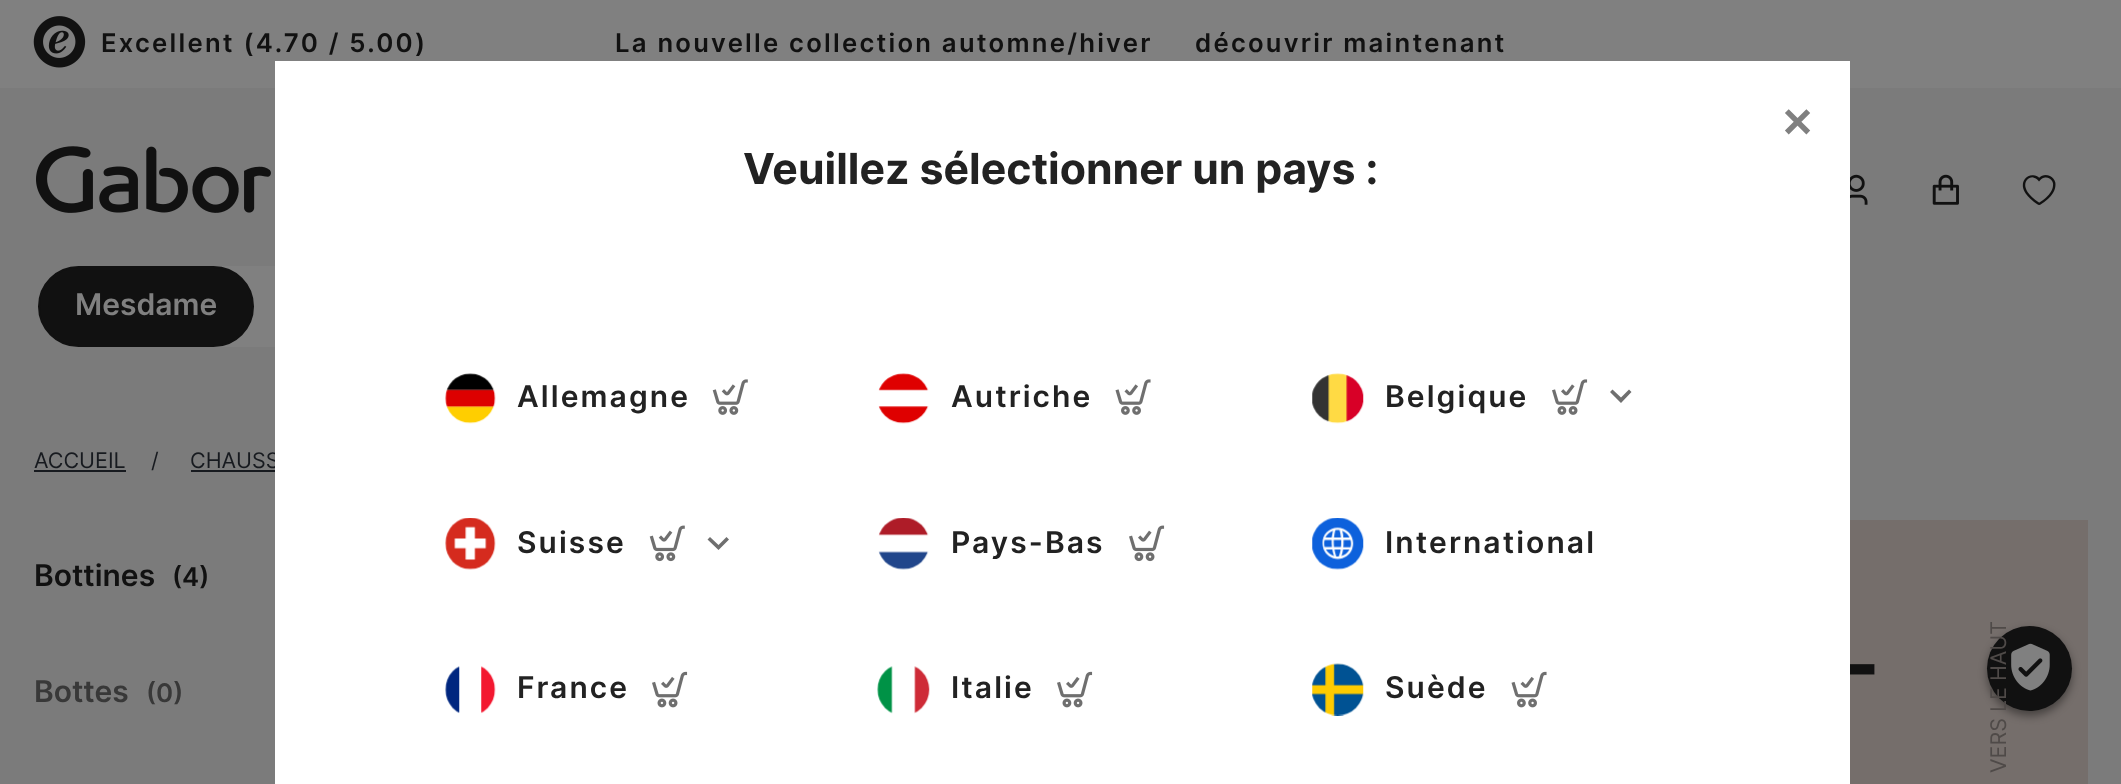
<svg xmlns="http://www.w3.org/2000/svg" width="2121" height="784">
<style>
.a{font:600 25.7px Inter;letter-spacing:2.25px;fill:#111}
.b{font:600 30px Inter;fill:#808080}
.c{font:21.5px Inter;fill:#171a1f}
.d{font:600 30px Inter;fill:#111}
.e{font:600 25.7px Inter;fill:#111}
.f{font:600 30px Inter;fill:#383838}
.g{font:600 25.7px Inter;fill:#383838}
.h{font:bold 86px Inter;fill:#111}
.i{font:21.5px Inter;fill:#4f4a48}
.j{font:bold 51px 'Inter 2';fill:#808080}
.k{font:bold 42.8px Inter;fill:#222}
.l{font:600 30px Inter;letter-spacing:2.1px;fill:#222}
</style>
<rect width="100%" height="100%" fill="#7b7b7b"/>
<path fill="#808080" d="M0 0h2121v88H0z"/>
<image href="1.png" x="33" y="16" width="53" height="52"/>
<image href="2.png" x="36" y="146" width="235" height="67"/>
<image href="3.png" x="1850" y="174" width="18" height="31"/>
<image href="4.png" x="1932" y="174" width="27" height="31"/>
<image href="5.png" x="2022" y="175" width="34" height="30"/>
<rect fill="#808080" x="38" y="266" width="408" height="81" rx="40.5"/>
<rect fill="#111" stroke="#111" stroke-width="2" x="39" y="267" width="214" height="79" rx="39.5"/>
<path fill="#171a1f" d="M34 470h92v2H34z"/>
<path fill="#171a1f" d="M191 470h84v2H191z"/>
<path fill="#756e6b" d="M1850 520h238v264H1850z"/>
<rect fill="#00000066" filter="blur(4.5px)" x="1987" y="630" width="85" height="86" rx="42.5"/>
<circle fill="#111" cx="2029.5" cy="668.5" r="42.5"/>
<image href="6.png" x="2011" y="643" width="39" height="48"/>
<text class="a" x="101" y="52">Excellent (4.70 / 5.00)</text>
<text class="a" x="615" y="52">La nouvelle collection automne/hiver</text>
<text class="a" x="1195" y="52">découvrir maintenant</text>
<text class="b" x="75" y="315">Mesdame</text>
<text class="c" x="34" y="468">ACCUEIL</text>
<text class="c" x="151" y="468">/</text>
<text class="c" x="190" y="468">CHAUSS</text>
<text class="d" x="34" y="586">Bottines</text>
<text class="e" x="172" y="586">(4)</text>
<text class="f" x="34" y="702">Bottes</text>
<text class="g" x="146" y="702">(0)</text>
<text class="h" x="1840" y="695">-</text>
<text class="i" x="2006" y="773" transform="rotate(-90 2006 773)">VERS LE HAUT</text>
<path fill="#fff" d="M275 61h1575v723H275z"/>
<text class="j" x="1780" y="137">×</text>
<text class="k" x="743" y="184">Veuillez sélectionner un pays :</text>
<image href="7.png" x="445" y="373" width="51" height="51"/>
<text class="l" x="517" y="407">Allemagne</text>
<image href="8.png" x="712" y="379" width="36" height="36"/>
<image href="9.png" x="878" y="373" width="51" height="51"/>
<text class="l" x="951" y="407">Autriche</text>
<image href="10.png" x="1115" y="379" width="36" height="36"/>
<image href="11.png" x="1312" y="373" width="52" height="51"/>
<text class="l" x="1385" y="407">Belgique</text>
<image href="12.png" x="1552" y="379" width="36" height="36"/>
<path fill="#6f6f6f" d="M1612.5 389.5l8.5 8l8-8l2.5 2.5l-10.5 11l-11-11z"/>
<image href="13.png" x="445" y="518" width="51" height="52"/>
<text class="l" x="517" y="553">Suisse</text>
<image href="14.png" x="649" y="525" width="36" height="37"/>
<path fill="#6f6f6f" d="M710 537l8.5 8l8-8l2.5 2.5l-10.5 10.5l-11-10.5z"/>
<image href="15.png" x="878" y="518" width="51" height="52"/>
<text class="l" x="951" y="553">Pays-Bas</text>
<image href="16.png" x="1129" y="525" width="36" height="37"/>
<image href="17.png" x="1312" y="518" width="52" height="52"/>
<text class="l" x="1385" y="553">International</text>
<image href="18.png" x="445" y="666" width="51" height="48"/>
<text class="l" x="517" y="698">France</text>
<image href="19.png" x="652" y="671" width="36" height="37"/>
<image href="20.png" x="877" y="666" width="53" height="48"/>
<text class="l" x="951" y="698">Italie</text>
<image href="19.png" x="1057" y="671" width="36" height="37"/>
<image href="21.png" x="1312" y="663" width="52" height="53"/>
<text class="l" x="1385" y="698">Suède</text>
<image href="22.png" x="1511" y="671" width="36" height="37"/>
</svg>
